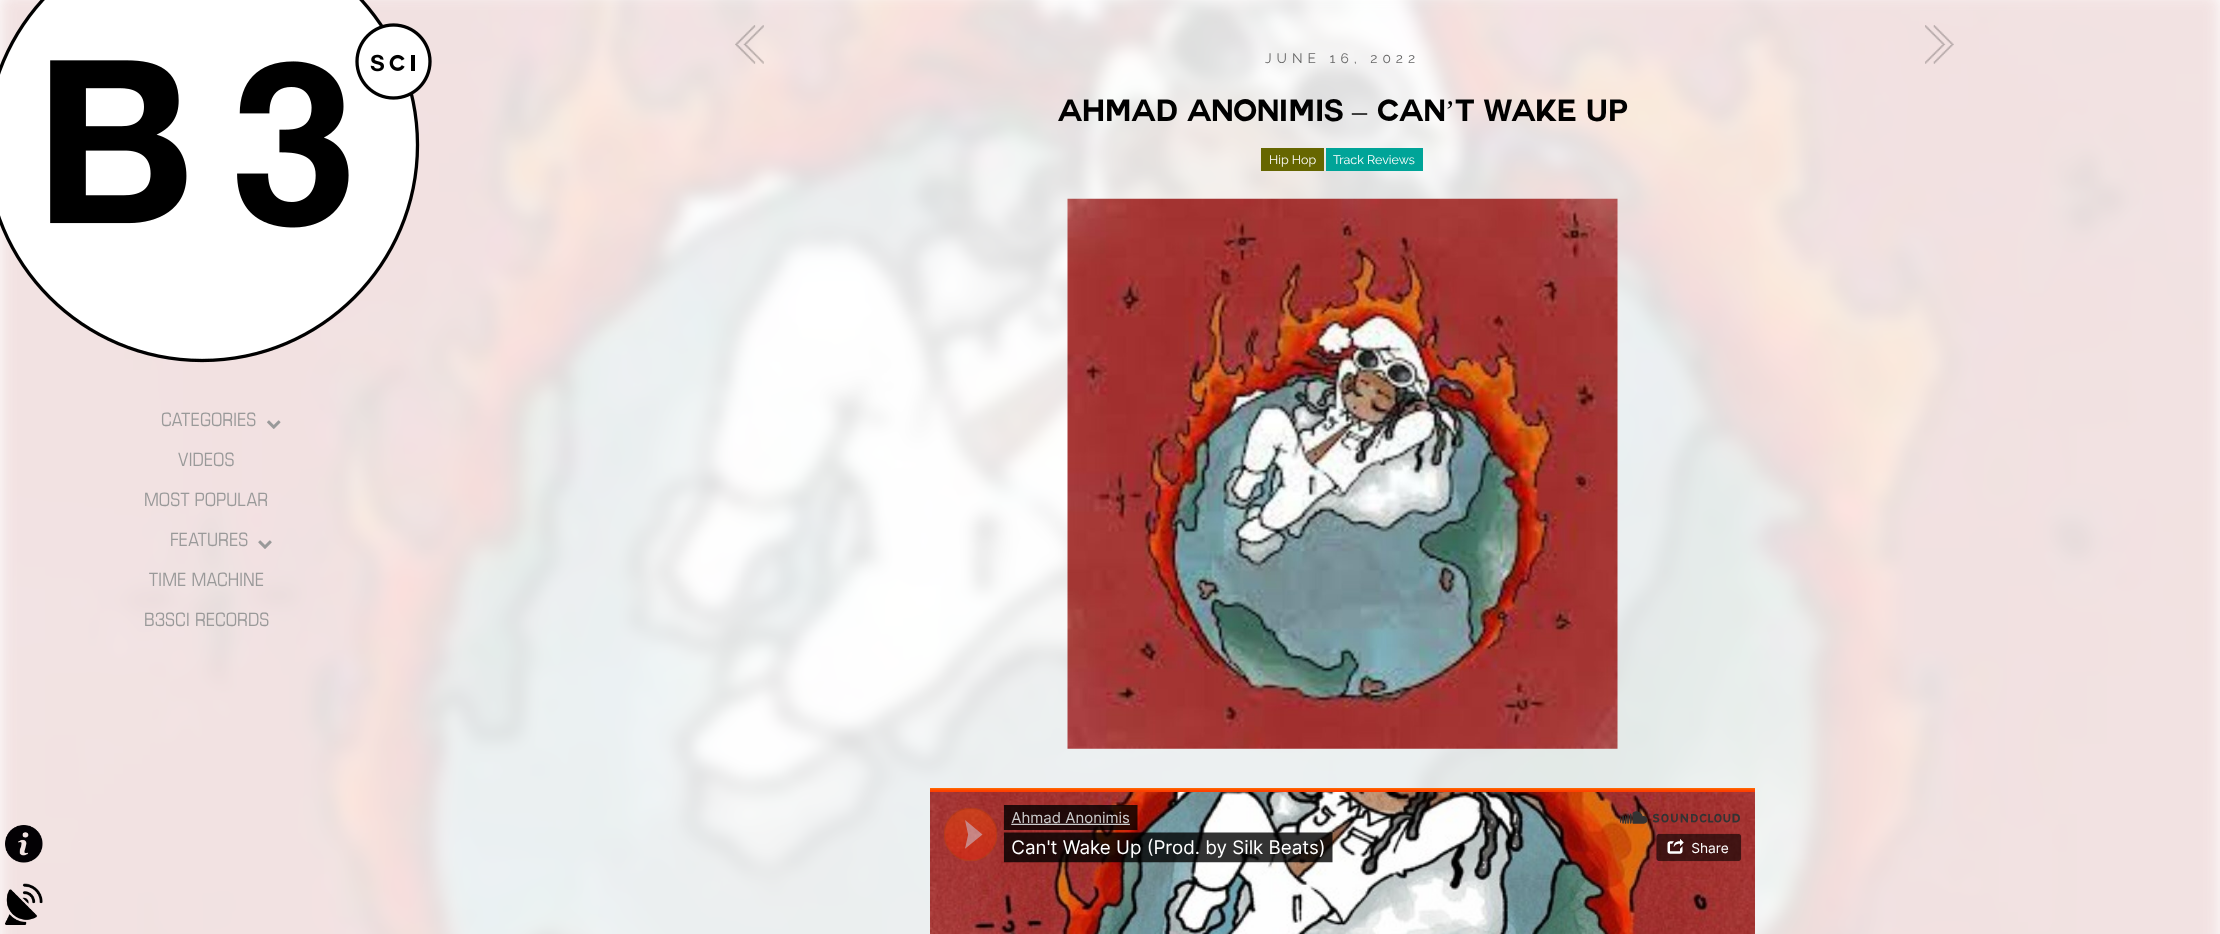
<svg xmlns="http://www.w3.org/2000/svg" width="2220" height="934">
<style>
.a{font:13.75px Raleway;letter-spacing:5px;fill:#666}
.b{font:bold 30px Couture;fill:#000}
.c{font:30px Liberation Serif;fill:#000}
.d{font:12.5px Raleway;fill:#fff}
.e{font:20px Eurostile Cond;fill:#999}
</style>
<rect width="100%" height="100%" fill="#fff"/>
<image href="2.png" x="0" y="0" width="2220" height="934"/>
<image href="1.png" x="0" y="0" width="432" height="363"/>
<image href="3.png" x="735" y="25" width="29" height="39"/>
<image href="4.png" x="1925" y="25" width="29" height="39"/>
<path fill="#660" d="M1261 148h63v23H1261z"/>
<path fill="#00a498" d="M1326 148h97v23H1326z"/>
<image href="5.png" x="1067" y="198" width="551" height="551"/>
<image href="6.png" x="930" y="788" width="825" height="146"/>
<image href="7.png" x="267" y="420" width="14" height="9"/>
<image href="8.png" x="258" y="540" width="14" height="9"/>
<image href="9.png" x="5" y="825" width="38" height="38"/>
<image href="10.png" x="5" y="883" width="38" height="42"/>
<text class="a" x="1265" y="63">JUNE 16, 2022</text>
<text class="b" x="1058" y="121">AHMAD ANONIMIS</text>
<text class="b" x="1377" y="121">CAN</text>
<text class="c" x="1445" y="121">’</text>
<text class="b" x="1455" y="121">T WAKE UP</text>
<text class="c" x="1352" y="121">–</text>
<text class="d" x="1269" y="164">Hip Hop</text>
<text class="d" x="1333" y="164">Track Reviews</text>
<text class="e" x="161" y="426">CATEGORIES</text>
<text class="e" x="178" y="466">VIDEOS</text>
<text class="e" x="144" y="506">MOST POPULAR</text>
<text class="e" x="170" y="546">FEATURES</text>
<text class="e" x="149" y="586">TIME MACHINE</text>
<text class="e" x="144" y="626">B3SCI RECORDS</text>
</svg>
